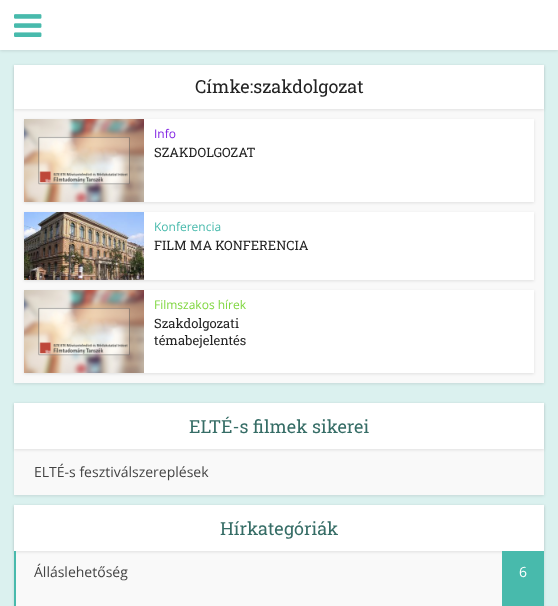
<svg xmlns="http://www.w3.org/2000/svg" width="558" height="606">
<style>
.a{font:18px Roboto Slab;fill:#232323}
.b{font:12px Open Sans;fill:#8224e3}
.c{font:13px Roboto Slab;fill:#232323}
.d{font:12px Open Sans;fill:#48baac}
.e{font:12px Open Sans;fill:#81d742}
.f{font:18px Roboto Slab;fill:#366d66}
.g{font:14px Open Sans;fill:#444}
.h{font:14px Open Sans;fill:#fff}
</style>
<rect width="100%" height="100%" fill="#dbf1ef"/>
<path fill="#0000001a" filter="blur(1.5px)" d="M0 1h558v50H0z"/>
<path fill="#fff" d="M0 0h558v50H0z"/>
<image href="1.png" x="14" y="14" width="28" height="23"/>
<path fill="#0000001a" filter="blur(1.5px)" d="M14 66h530v318H14z"/>
<path fill="#f9f9f9" d="M14 109h530v274H14z"/>
<path fill="#0000001a" filter="blur(1.5px)" d="M14 66h530v44H14z"/>
<path fill="#fff" d="M14 65h530v44H14z"/>
<path fill="#0000001a" filter="blur(1.5px)" d="M24 120h510v83H24z"/>
<path fill="#fff" d="M144 119h390v83H144z"/>
<image href="2.png" x="24" y="119" width="120" height="83"/>
<path fill="#0000001a" filter="blur(1.5px)" d="M24 213h510v68H24z"/>
<path fill="#fff" d="M144 212h390v68H144z"/>
<image href="3.png" x="24" y="212" width="120" height="68"/>
<path fill="#0000001a" filter="blur(1.5px)" d="M24 291h510v83H24z"/>
<path fill="#fff" d="M144 290h390v83H144z"/>
<image href="2.png" x="24" y="290" width="120" height="83"/>
<path fill="#0000001a" filter="blur(1.5px)" d="M14 404h530v92H14z"/>
<path fill="#f9f9f9" d="M14 449h530v46H14z"/>
<path fill="#0000001a" filter="blur(1.5px)" d="M14 404h530v46H14z"/>
<path fill="#fff" d="M14 403h530v46H14z"/>
<path fill="#0000001a" filter="blur(1.5px)" d="M14 506h530v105H14z"/>
<path fill="#f9f9f9" d="M16 551h486v55H16z"/>
<path fill="#0000001a" filter="blur(1.5px)" d="M14 506h530v46H14z"/>
<path fill="#fff" d="M14 505h530v46H14z"/>
<path fill="#48baac" d="M14 551h2v55H14z"/>
<path fill="#48baac" d="M502 551h42v55H502z"/>
<text class="a" x="195" y="93">Címke:szakdolgozat</text>
<text class="b" x="154" y="138">Info</text>
<text class="c" x="154" y="157">SZAKDOLGOZAT</text>
<text class="d" x="154" y="231">Konferencia</text>
<text class="c" x="154" y="250">FILM MA KONFERENCIA</text>
<text class="e" x="154" y="309">Filmszakos hírek</text>
<text class="c" x="154" y="328">Szakdolgozati</text>
<text class="c" x="154" y="345">témabejelentés</text>
<text class="f" x="189" y="433">ELTÉ-s filmek sikerei</text>
<text class="g" x="34" y="477">ELTÉ-s fesztiválszereplések</text>
<text class="f" x="220" y="535">Hírkategóriák</text>
<text class="g" x="34" y="577">Álláslehetőség</text>
<text class="h" x="519" y="577">6</text>
</svg>
